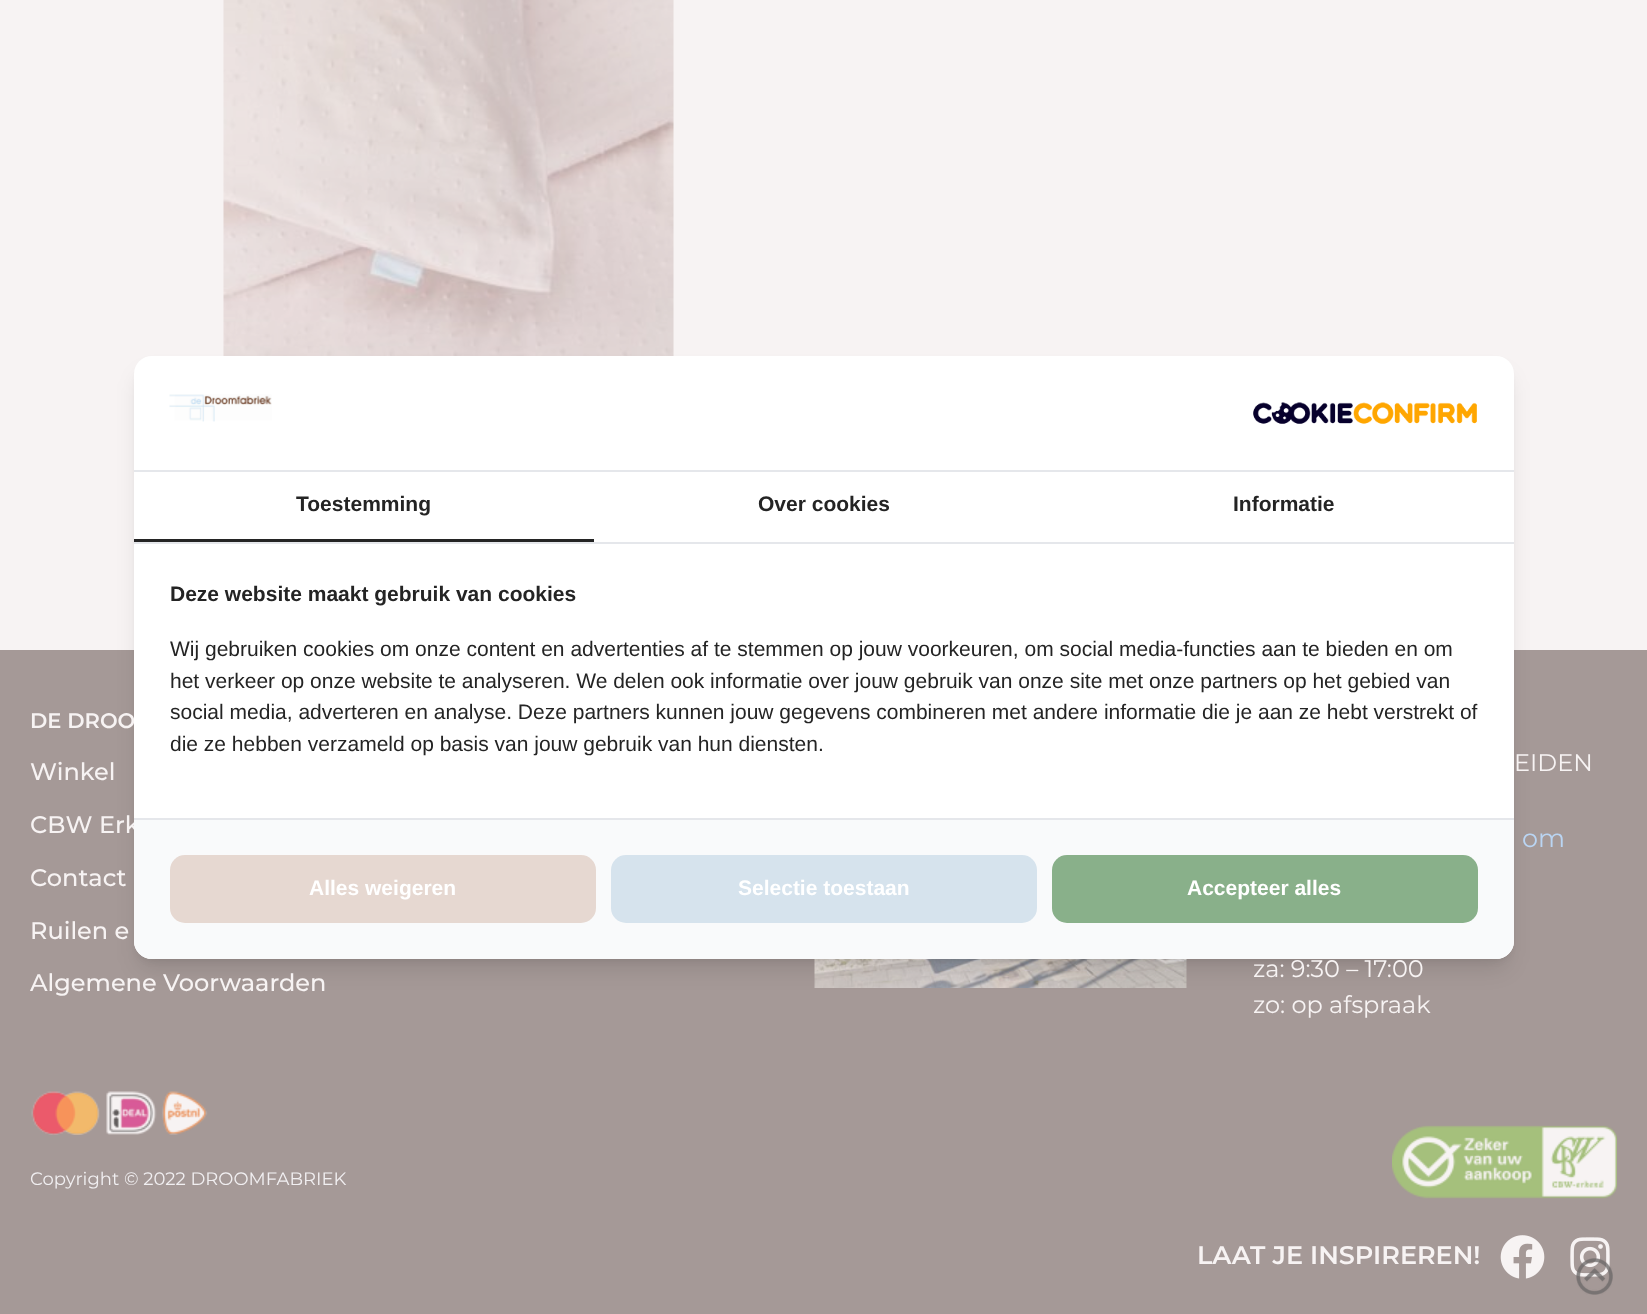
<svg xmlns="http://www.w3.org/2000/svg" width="1647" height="1314">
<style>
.a{font:600 21px Montserrat;fill:#f7f3f3}
.b{font:500 24px Montserrat;fill:#f7f3f3}
.c{font:bold 21px Liberation Sans;fill:#fff}
.d{font:21px Liberation Sans;fill:#242424}
.e{font:bold 21px Liberation Sans;fill:#242424}
.f{font:24px Montserrat;fill:#f7f3f3}
.g{font:25.5px Montserrat;fill:#bad5f3}
.h{font:18px Montserrat;fill:#f1eff1}
.i{font:600 25.5px Montserrat;fill:#f7f3f3}
</style>
<defs>
<clipPath id="clip1"><rect x="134" y="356" width="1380" height="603" rx="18"/></clipPath>
</defs>
<rect width="100%" height="100%" fill="#f7f3f3"/>
<image href="1.png" x="223" y="0" width="451" height="356"/>
<path fill="#a59997" d="M0 650h1647v664H0z"/>
<image href="4.png" x="814" y="959" width="373" height="29"/>
<rect fill="#0000001a" filter="blur(4.5px)" x="140" y="368" width="1368" height="591" rx="12"/>
<rect fill="#0000001a" filter="blur(11px)" x="138" y="375" width="1371" height="594" rx="14"/>
<image href="5.png" x="31" y="1091" width="177" height="44"/>
<image href="6.png" x="1392" y="1125" width="225" height="74"/>
<image href="7.png" x="1500" y="1235" width="45" height="44"/>
<image href="8.png" x="1570" y="1237" width="40" height="40"/>
<image href="9.png" x="1576" y="1258" width="37" height="37"/>
<text class="a" x="30" y="728">DE DROO</text>
<text class="b" x="30" y="780">Winkel</text>
<text class="b" x="30" y="833">CBW Erk</text>
<rect fill="#fff" x="134" y="356" width="1380" height="603" rx="18"/>
<g clip-path="url(#clip1)">
<path fill="#fff" filter="blur(15px)" d="M122 776h1404v165H122z"/>
</g>
<path fill="#f9fafb" d="M134 818h1380v123c0 10-8 18-18 18h-1344c-10 0-18-8-18-18z"/>
<rect fill="#89b08a" x="1052" y="855" width="426" height="68" rx="15"/>
<text class="c" x="1187" y="895">Accepteer alles</text>
<rect fill="#d6e3ed" x="611" y="855" width="426" height="68" rx="15"/>
<text class="c" x="738" y="895">Selectie toestaan</text>
<rect fill="#e6d8d1" x="170" y="855" width="426" height="68" rx="15"/>
<text class="c" x="309" y="895">Alles weigeren</text>
<path fill="#e5e7eb" d="M134 818h1380v2H134z"/>
<text class="d" x="170" y="751">die ze hebben verzameld op basis van jouw gebruik van hun diensten.</text>
<text class="d" x="170" y="719">social media, adverteren en analyse. Deze partners kunnen jouw gegevens combineren met andere informatie die je aan ze hebt verstrekt of</text>
<text class="d" x="170" y="688">het verkeer op onze website te analyseren. We delen ook informatie over jouw gebruik van onze site met onze partners op het gebied van</text>
<text class="d" x="170" y="656">Wij gebruiken cookies om onze content en advertenties af te stemmen op jouw voorkeuren, om social media-functies aan te bieden en om</text>
<text class="e" x="170" y="601">Deze website maakt gebruik van cookies</text>
<text class="e" x="1233" y="511">Informatie</text>
<text class="e" x="758" y="511">Over cookies</text>
<text class="e" x="296" y="511">Toestemming</text>
<path fill="#242424" d="M134 539h460v3H134z"/>
<path fill="#e5e7eb" d="M134 542h1380v2H134z"/>
<image href="3.png" x="1253" y="402" width="224" height="22"/>
<image href="2.png" x="169" y="394" width="103" height="28"/>
<path fill="#e5e7eb" d="M134 470h1380v2H134z"/>
<text class="b" x="30" y="886">Contact</text>
<text class="b" x="30" y="939">Ruilen e</text>
<text class="b" x="30" y="991">Algemene Voorwaarden</text>
<text class="f" x="1514" y="771">EIDEN</text>
<text class="g" x="1522" y="847">om</text>
<text class="f" x="1253" y="977">za: 9:30 – 17:00</text>
<text class="f" x="1253" y="1013">zo: op afspraak</text>
<text class="h" x="30" y="1185">Copyright © 2022 DROOMFABRIEK</text>
<text class="i" x="1197" y="1264">LAAT JE INSPIREREN!</text>
</svg>
